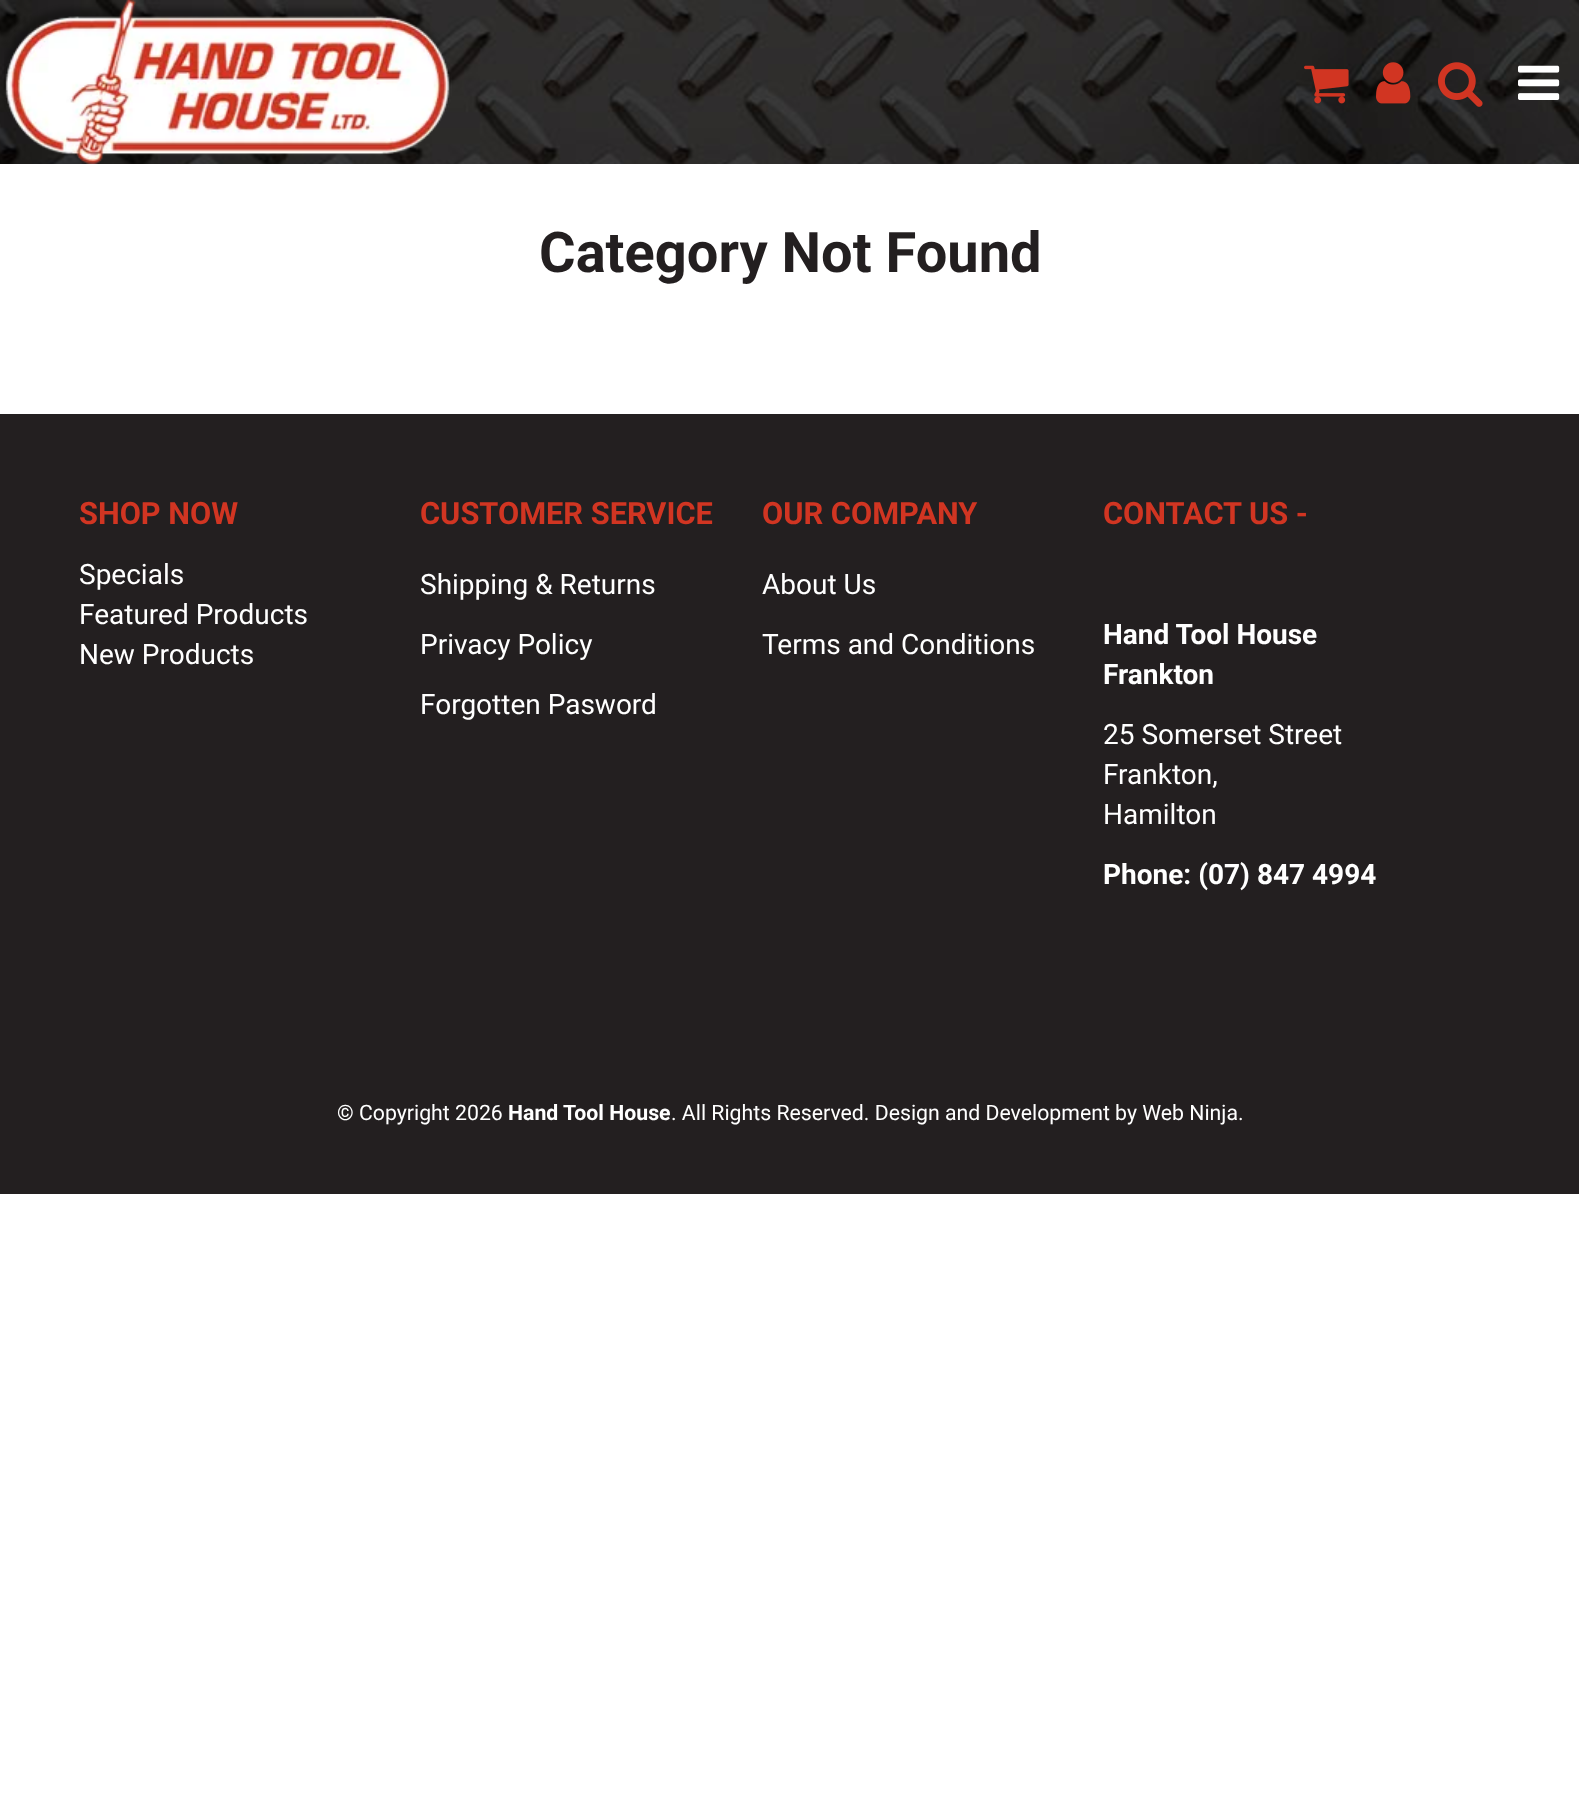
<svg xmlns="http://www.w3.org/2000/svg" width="1579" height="1814">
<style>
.a{font:bold 56px Roboto;fill:#231f20}
.b{font:bold 30.75px Roboto;fill:#d13522}
.c{font:28px Roboto;fill:#fff}
.d{font:bold 28px Roboto;fill:#fff}
.e{font:21.25px Roboto;fill:#fff}
.f{font:bold 21.25px Roboto;fill:#fff}
</style>
<rect width="100%" height="100%" fill="#fff"/>
<image href="1.png" x="0" y="0" width="1579" height="164"/>
<image href="2.png" x="4" y="0" width="448" height="164"/>
<image href="3.png" x="1304" y="65" width="45" height="39"/>
<image href="4.png" x="1376" y="62" width="35" height="42"/>
<image href="5.png" x="1438" y="62" width="45" height="45"/>
<image href="6.png" x="1518" y="65" width="42" height="35"/>
<path fill="#231f20" d="M0 414h1579v780H0z"/>
<text class="a" x="539" y="272">Category Not Found</text>
<text class="b" x="79" y="524">SHOP NOW</text>
<text class="c" x="79" y="584">Specials</text>
<text class="c" x="79" y="624">Featured Products</text>
<text class="c" x="79" y="664">New Products</text>
<text class="b" x="420" y="524">CUSTOMER SERVICE</text>
<text class="c" x="420" y="594">Shipping &amp; Returns</text>
<text class="c" x="420" y="654">Privacy Policy</text>
<text class="c" x="420" y="714">Forgotten Pasword</text>
<text class="b" x="762" y="524">OUR COMPANY</text>
<text class="c" x="762" y="594">About Us</text>
<text class="c" x="762" y="654">Terms and Conditions</text>
<text class="b" x="1103" y="524">CONTACT US -</text>
<text class="d" x="1103" y="644">Hand Tool House</text>
<text class="d" x="1103" y="684">Frankton</text>
<text class="c" x="1103" y="744">25 Somerset Street</text>
<text class="c" x="1103" y="784">Frankton,</text>
<text class="c" x="1103" y="824">Hamilton</text>
<text class="d" x="1103" y="884">Phone: (07) 847 4994</text>
<text class="e" x="337" y="1120">© Copyright 2026</text>
<text class="f" x="508" y="1120">Hand Tool House</text>
<text class="e" x="671" y="1120">. All Rights Reserved. Design and Development by Web Ninja.</text>
</svg>
